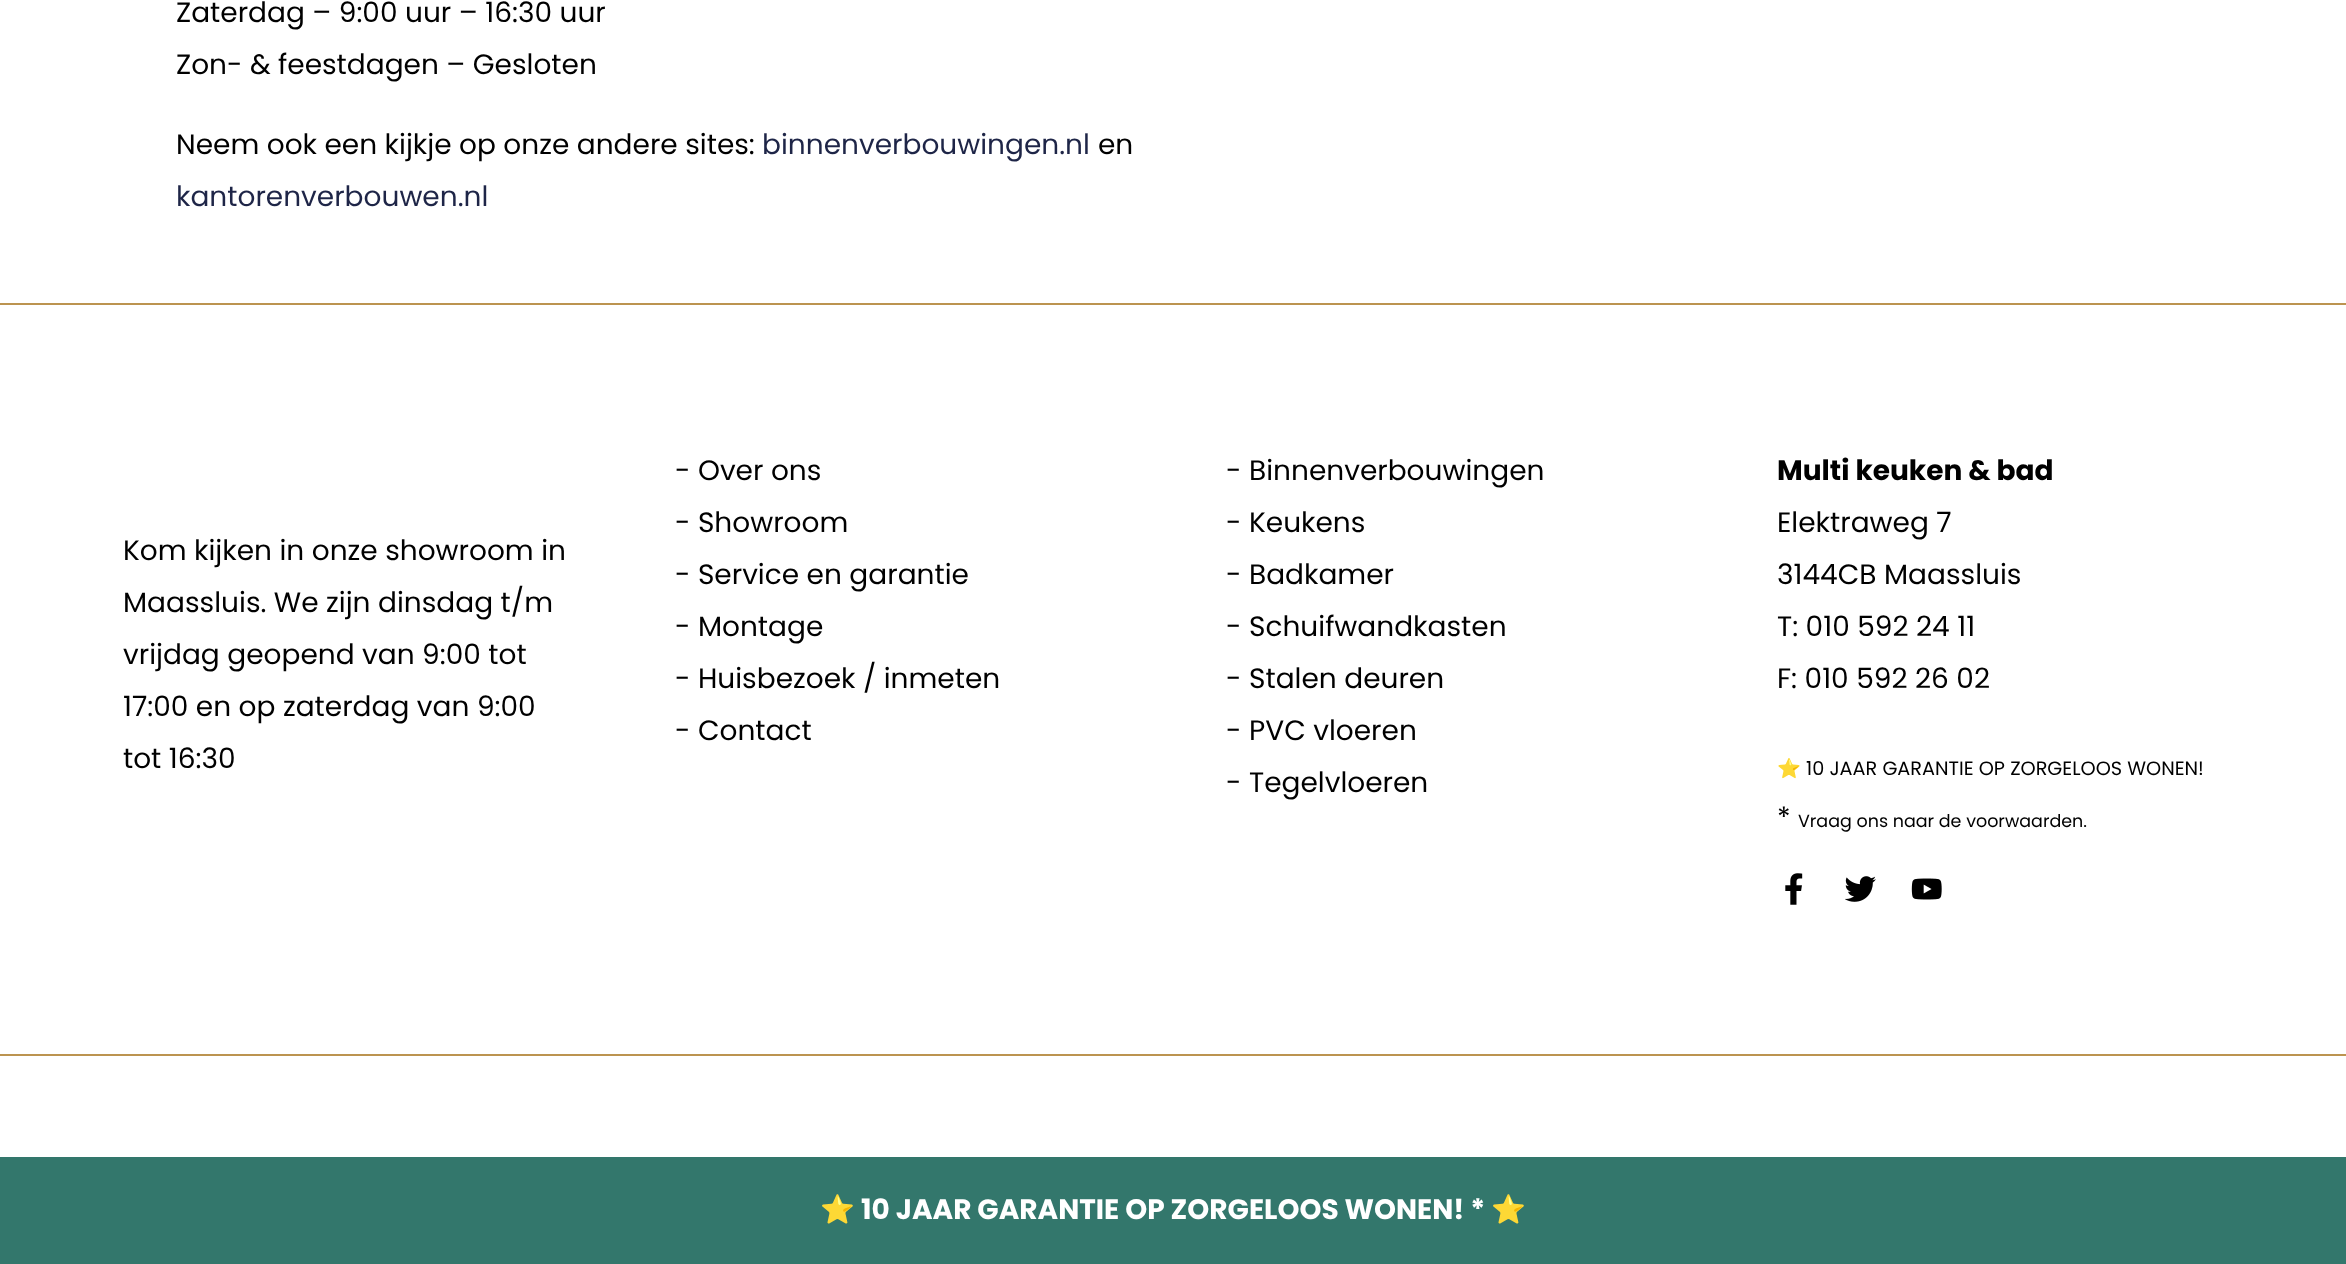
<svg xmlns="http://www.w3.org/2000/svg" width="2346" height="1264">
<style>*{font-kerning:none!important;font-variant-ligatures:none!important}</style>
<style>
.a{font:28px Poppins;fill:#000}
.b{font:28px Poppins;fill:#1e2547}
.c{font:bold 28px Poppins;fill:#000}
.d{font:19.25px Noto Color Emoji;fill:#000}
.e{font:19.25px Poppins;fill:#000}
.f{font:17.5px Poppins;fill:#000}
.g{font:bold 28px Noto Color Emoji;fill:#fff}
.h{font:bold 28px Poppins;fill:#fff}
</style>
<rect width="100%" height="100%" fill="#fff"/>
<path fill="#bc9450" d="M0 303h2346v2H0z"/>
<image href="1.png" x="1785" y="873" width="18" height="32"/>
<image href="2.png" x="1845" y="876" width="31" height="26"/>
<image href="3.png" x="1911" y="878" width="31" height="22"/>
<path fill="#bc9450" d="M0 1054h2346v2H0z"/>
<path fill="#33776c" d="M0 1157h2346v107H0z"/>
<text class="a" x="176" y="22">Zaterdag – 9:00 uur – 16:30 uur</text>
<text class="a" x="176" y="74">Zon- &amp; feestdagen – Gesloten</text>
<text class="a" x="176" y="154">Neem ook een kijkje op onze andere sites:</text>
<text class="b" x="762" y="154">binnenverbouwingen.nl</text>
<text class="a" x="1098" y="154">en</text>
<text class="b" x="176" y="206">kantorenverbouwen.nl</text>
<text class="a" x="123" y="560">Kom kijken in onze showroom in</text>
<text class="a" x="123" y="612">Maassluis. We zijn dinsdag t/m</text>
<text class="a" x="123" y="664">vrijdag geopend van 9:00 tot</text>
<text class="a" x="123" y="716">17:00 en op zaterdag van 9:00</text>
<text class="a" x="123" y="768">tot 16:30</text>
<text class="a" x="675" y="480">- Over ons</text>
<text class="a" x="675" y="532">- Showroom</text>
<text class="a" x="675" y="584">- Service en garantie</text>
<text class="a" x="675" y="636">- Montage</text>
<text class="a" x="675" y="688">- Huisbezoek / inmeten</text>
<text class="a" x="675" y="740">- Contact</text>
<text class="a" x="1226" y="480">-</text>
<text class="a" x="1249" y="480">Binnenverbouwingen</text>
<text class="a" x="1226" y="532">-</text>
<text class="a" x="1249" y="532">Keukens</text>
<text class="a" x="1226" y="584">-</text>
<text class="a" x="1249" y="584">Badkamer</text>
<text class="a" x="1226" y="636">-</text>
<text class="a" x="1249" y="636">Schuifwandkasten</text>
<text class="a" x="1226" y="688">-</text>
<text class="a" x="1249" y="688">Stalen deuren</text>
<text class="a" x="1226" y="740">-</text>
<text class="a" x="1249" y="740">PVC vloeren</text>
<text class="a" x="1226" y="792">-</text>
<text class="a" x="1249" y="792">Tegelvloeren</text>
<text class="c" x="1777" y="480">Multi keuken &amp; bad</text>
<text class="a" x="1777" y="532">Elektraweg 7</text>
<text class="a" x="1777" y="584">3144CB Maassluis</text>
<text class="a" x="1777" y="636">T: 010 592 24 11</text>
<text class="a" x="1777" y="688">F: 010 592 26 02</text>
<text class="d" x="1777" y="775">⭐</text>
<text class="e" x="1806" y="775">10 JAAR GARANTIE OP ZORGELOOS WONEN!</text>
<text class="a" x="1777" y="827">*</text>
<text class="f" x="1798" y="827">Vraag ons naar de voorwaarden.</text>
<text class="g" x="820" y="1219">⭐</text>
<text class="h" x="861" y="1219">10 JAAR GARANTIE OP ZORGELOOS WONEN! *</text>
<text class="g" x="1491" y="1219">⭐</text>
</svg>
